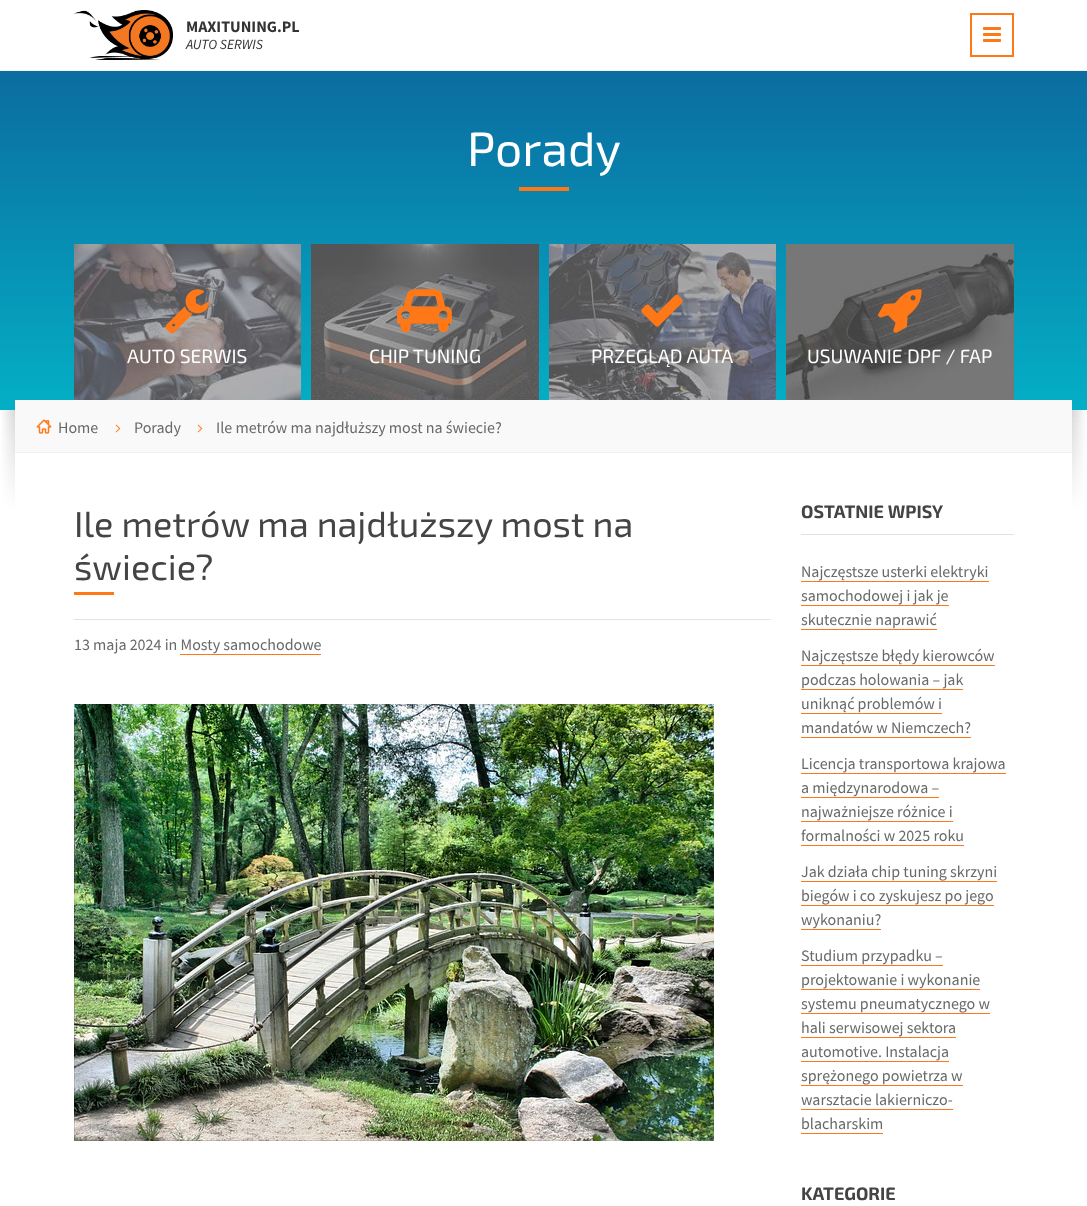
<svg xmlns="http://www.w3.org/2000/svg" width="1087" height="1206">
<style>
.a{font:bold 16px Source Sans Pro;fill:#333}
.b{font:italic 14px Source Sans Pro;fill:#333}
.c{font:48px 'Exo 2';fill:#fff}
.d{font:19.25px 'Exo 2';fill:#fff}
.e{font:16px Source Sans Pro;fill:#696969}
.f{font:36px 'Exo 2';fill:#444}
.g{font:bold 18px 'Exo 2';fill:#444}
</style>
<defs>
<linearGradient id="g1" gradientUnits="userSpaceOnUse" x1="544" y1="71" x2="544" y2="410"><stop offset="0" stop-color="#0b6ca0"/><stop offset="1" stop-color="#04afc5"/></linearGradient>
<linearGradient id="g2" gradientUnits="userSpaceOnUse" x1="0" y1="460" x2="15" y2="460"><stop offset="0" stop-color="#fff"/><stop offset="1" stop-color="#d9d9d9"/></linearGradient>
<linearGradient id="g3" gradientUnits="userSpaceOnUse" x1="7.5" y1="410" x2="7.5" y2="510"><stop offset="0" stop-color="#fff" stop-opacity="0"/><stop offset="1" stop-color="#fff"/></linearGradient>
<linearGradient id="g4" gradientUnits="userSpaceOnUse" x1="1072" y1="460" x2="1087" y2="460"><stop offset="0" stop-color="#d9d9d9"/><stop offset="1" stop-color="#fff"/></linearGradient>
<linearGradient id="g5" gradientUnits="userSpaceOnUse" x1="1080" y1="410" x2="1080" y2="510"><stop offset="0" stop-color="#fff" stop-opacity="0"/><stop offset="1" stop-color="#fff"/></linearGradient>
</defs>
<rect width="100%" height="100%" fill="#fff"/>
<path fill="#f1f1f1" d="M0 70h1087v1H0z"/>
<image href="1.png" x="74" y="10" width="99" height="50"/>
<path fill="none" stroke="#ff7817" stroke-width="2" d="M971 14h42v42H971z"/>
<image href="2.png" x="983" y="27" width="18" height="15"/>
<path fill="url(#g1)" d="M0 71h1087v339H0z"/>
<path fill="#ff7817" d="M519 187h50v4H519z"/>
<image href="3.png" x="74" y="244" width="227" height="156"/>
<image href="4.png" x="165" y="289" width="45" height="45"/>
<image href="5.png" x="311" y="244" width="228" height="156"/>
<image href="6.png" x="397" y="289" width="55" height="44"/>
<image href="7.png" x="549" y="244" width="227" height="156"/>
<image href="8.png" x="641" y="294" width="42" height="33"/>
<image href="9.png" x="786" y="244" width="228" height="156"/>
<image href="10.png" x="877" y="289" width="45" height="44"/>
<path fill="url(#g2)" d="M1 410h14v99H1z"/>
<path fill="url(#g3)" d="M1 417h14v92H1z"/>
<path fill="#f9f9f9" d="M15 400h1057v52H15z"/>
<path fill="#f1f1f1" d="M15 452h1057v1H15z"/>
<image href="11.png" x="36" y="419" width="16" height="15"/>
<image href="12.png" x="115" y="424" width="6" height="9"/>
<image href="12.png" x="197" y="424" width="6" height="9"/>
<path fill="url(#g4)" d="M1072 410h14v99H1072z"/>
<path fill="url(#g5)" d="M1072 417h14v92H1072z"/>
<path fill="#e2e2e2" d="M74 619h697v1H74z"/>
<path fill="#ff7817" d="M74 592h40v3H74z"/>
<path fill="#ff7817" d="M180 654h141v1H180z"/>
<image href="13.png" x="74" y="704" width="640" height="437"/>
<path fill="#e2e2e2" d="M801 534h213v1H801z"/>
<path fill="#ff7817" d="M801 581h188v1H801z"/>
<path fill="#ff7817" d="M801 605h148v1H801z"/>
<path fill="#ff7817" d="M801 629h136v1H801z"/>
<path fill="#ff7817" d="M801 665h194v1H801z"/>
<path fill="#ff7817" d="M801 689h162v1H801z"/>
<path fill="#ff7817" d="M801 713h141v1H801z"/>
<path fill="#ff7817" d="M801 737h170v1H801z"/>
<path fill="#ff7817" d="M801 773h205v1H801z"/>
<path fill="#ff7817" d="M801 797h138v1H801z"/>
<path fill="#ff7817" d="M801 821h152v1H801z"/>
<path fill="#ff7817" d="M801 845h163v1H801z"/>
<path fill="#ff7817" d="M801 881h196v1H801z"/>
<path fill="#ff7817" d="M801 905h193v1H801z"/>
<path fill="#ff7817" d="M801 929h80v1H801z"/>
<path fill="#ff7817" d="M801 965h142v1H801z"/>
<path fill="#ff7817" d="M801 989h179v1H801z"/>
<path fill="#ff7817" d="M801 1013h189v1H801z"/>
<path fill="#ff7817" d="M801 1037h155v1H801z"/>
<path fill="#ff7817" d="M801 1061h148v1H801z"/>
<path fill="#ff7817" d="M801 1085h162v1H801z"/>
<path fill="#ff7817" d="M801 1109h152v1H801z"/>
<path fill="#ff7817" d="M801 1133h82v1H801z"/>
<text class="a" x="186" y="32">MAXITUNING.PL</text>
<text class="b" x="186" y="49">AUTO SERWIS</text>
<text class="c" x="467" y="166">Porady</text>
<text class="d" x="127" y="363">AUTO SERWIS</text>
<text class="d" x="369" y="363">CHIP TUNING</text>
<text class="d" x="591" y="363">PRZEGLĄD AUTA</text>
<text class="d" x="807" y="363">USUWANIE DPF / FAP</text>
<text class="e" x="58" y="433">Home</text>
<text class="e" x="134" y="433">Porady</text>
<text class="e" x="216" y="433">Ile metrów ma najdłuższy most na świecie?</text>
<text class="f" x="74" y="537">Ile metrów ma najdłuższy most na</text>
<text class="f" x="74" y="580">świecie?</text>
<text class="e" x="74" y="650">13 maja 2024 in Mosty samochodowe</text>
<text class="g" x="801" y="518">OSTATNIE WPISY</text>
<text class="e" x="801" y="577">Najczęstsze usterki elektryki</text>
<text class="e" x="801" y="601">samochodowej i jak je</text>
<text class="e" x="801" y="625">skutecznie naprawić</text>
<text class="e" x="801" y="661">Najczęstsze błędy kierowców</text>
<text class="e" x="801" y="685">podczas holowania – jak</text>
<text class="e" x="801" y="709">uniknąć problemów i</text>
<text class="e" x="801" y="733">mandatów w Niemczech?</text>
<text class="e" x="801" y="769">Licencja transportowa krajowa</text>
<text class="e" x="801" y="793">a międzynarodowa –</text>
<text class="e" x="801" y="817">najważniejsze różnice i</text>
<text class="e" x="801" y="841">formalności w 2025 roku</text>
<text class="e" x="801" y="877">Jak działa chip tuning skrzyni</text>
<text class="e" x="801" y="901">biegów i co zyskujesz po jego</text>
<text class="e" x="801" y="925">wykonaniu?</text>
<text class="e" x="801" y="961">Studium przypadku –</text>
<text class="e" x="801" y="985">projektowanie i wykonanie</text>
<text class="e" x="801" y="1009">systemu pneumatycznego w</text>
<text class="e" x="801" y="1033">hali serwisowej sektora</text>
<text class="e" x="801" y="1057">automotive. Instalacja</text>
<text class="e" x="801" y="1081">sprężonego powietrza w</text>
<text class="e" x="801" y="1105">warsztacie lakierniczo-</text>
<text class="e" x="801" y="1129">blacharskim</text>
<text class="g" x="801" y="1200">KATEGORIE</text>
</svg>
